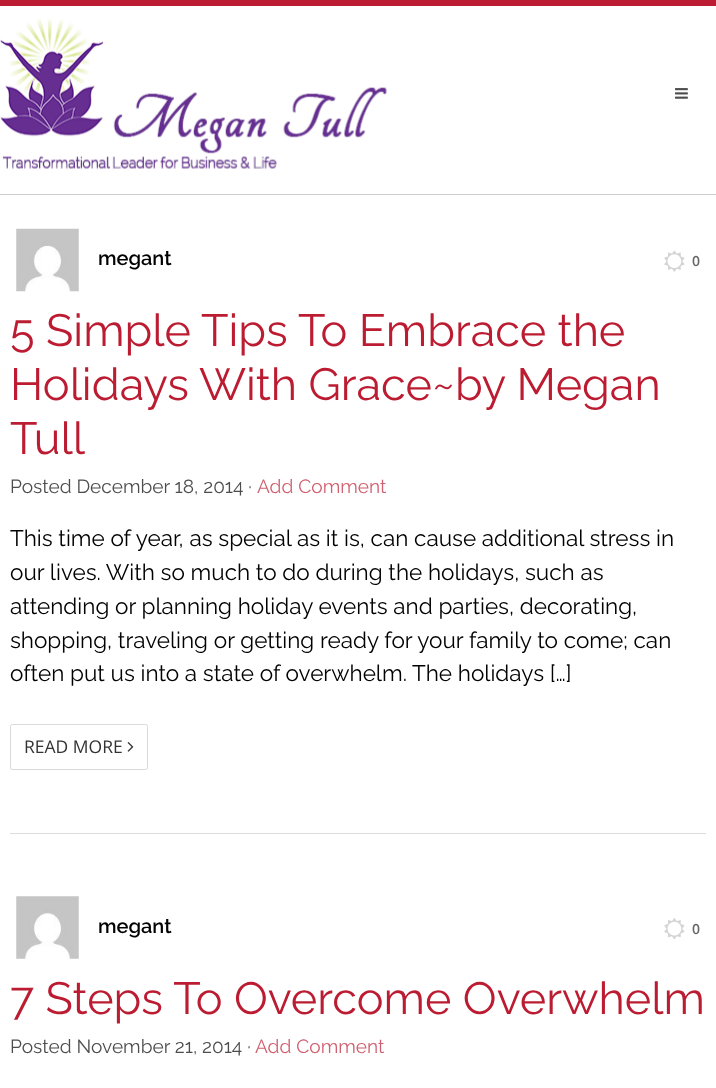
<svg xmlns="http://www.w3.org/2000/svg" width="716" height="1088">
<style>
.a{font:600 20px Raleway;fill:#000}
.b{font:600 14px Open Sans;fill:#666}
.c{font:45px Raleway;fill:#bc1c31}
.d{font:19.1px Raleway;fill:#4d4d4d}
.e{font:19.1px Raleway;fill:#d0606f}
.f{font:22.5px Raleway;fill:#000}
.g{font:17.5px Open Sans;fill:#333}
</style>
<rect width="100%" height="100%" fill="#fff"/>
<path fill="#ccc" d="M0 194h716v1H0z"/>
<path fill="#bc1c31" d="M0 0h716v6H0z"/>
<image href="1.png" x="0" y="19" width="387" height="150"/>
<image href="2.png" x="675" y="88" width="13" height="11"/>
<path fill="#ddd" d="M10 833h696v1H10z"/>
<image href="3.png" x="16" y="228" width="63" height="64"/>
<image href="4.png" x="664" y="250" width="21" height="22"/>
<rect fill="none" stroke="#d9d9d9" x="10.5" y="724.5" width="137" height="45" rx="2"/>
<image href="5.png" x="127" y="742" width="7" height="10"/>
<image href="6.png" x="16" y="896" width="63" height="63"/>
<image href="7.png" x="664" y="918" width="21" height="22"/>
<text class="a" x="98" y="265">megant</text>
<text class="b" x="692" y="266">0</text>
<text class="c" x="10" y="346">5 Simple Tips To Embrace the</text>
<text class="c" x="10" y="400">Holidays With Grace~by Megan</text>
<text class="c" x="10" y="454">Tull</text>
<text class="d" x="10" y="493">Posted December 18, 2014 ·</text>
<text class="e" x="257" y="493">Add Comment</text>
<text class="f" x="10" y="546">This time of year, as special as it is, can cause additional stress in</text>
<text class="f" x="10" y="580">our lives. With so much to do during the holidays, such as</text>
<text class="f" x="10" y="614">attending or planning holiday events and parties, decorating,</text>
<text class="f" x="10" y="648">shopping, traveling or getting ready for your family to come; can</text>
<text class="f" x="10" y="681">often put us into a state of overwhelm. The holidays […]</text>
<text class="g" x="24" y="753">READ MORE</text>
<text class="a" x="98" y="933">megant</text>
<text class="b" x="692" y="934">0</text>
<text class="c" x="10" y="1014">7 Steps To Overcome Overwhelm</text>
<text class="d" x="10" y="1053">Posted November 21, 2014 ·</text>
<text class="e" x="255" y="1053">Add Comment</text>
</svg>
